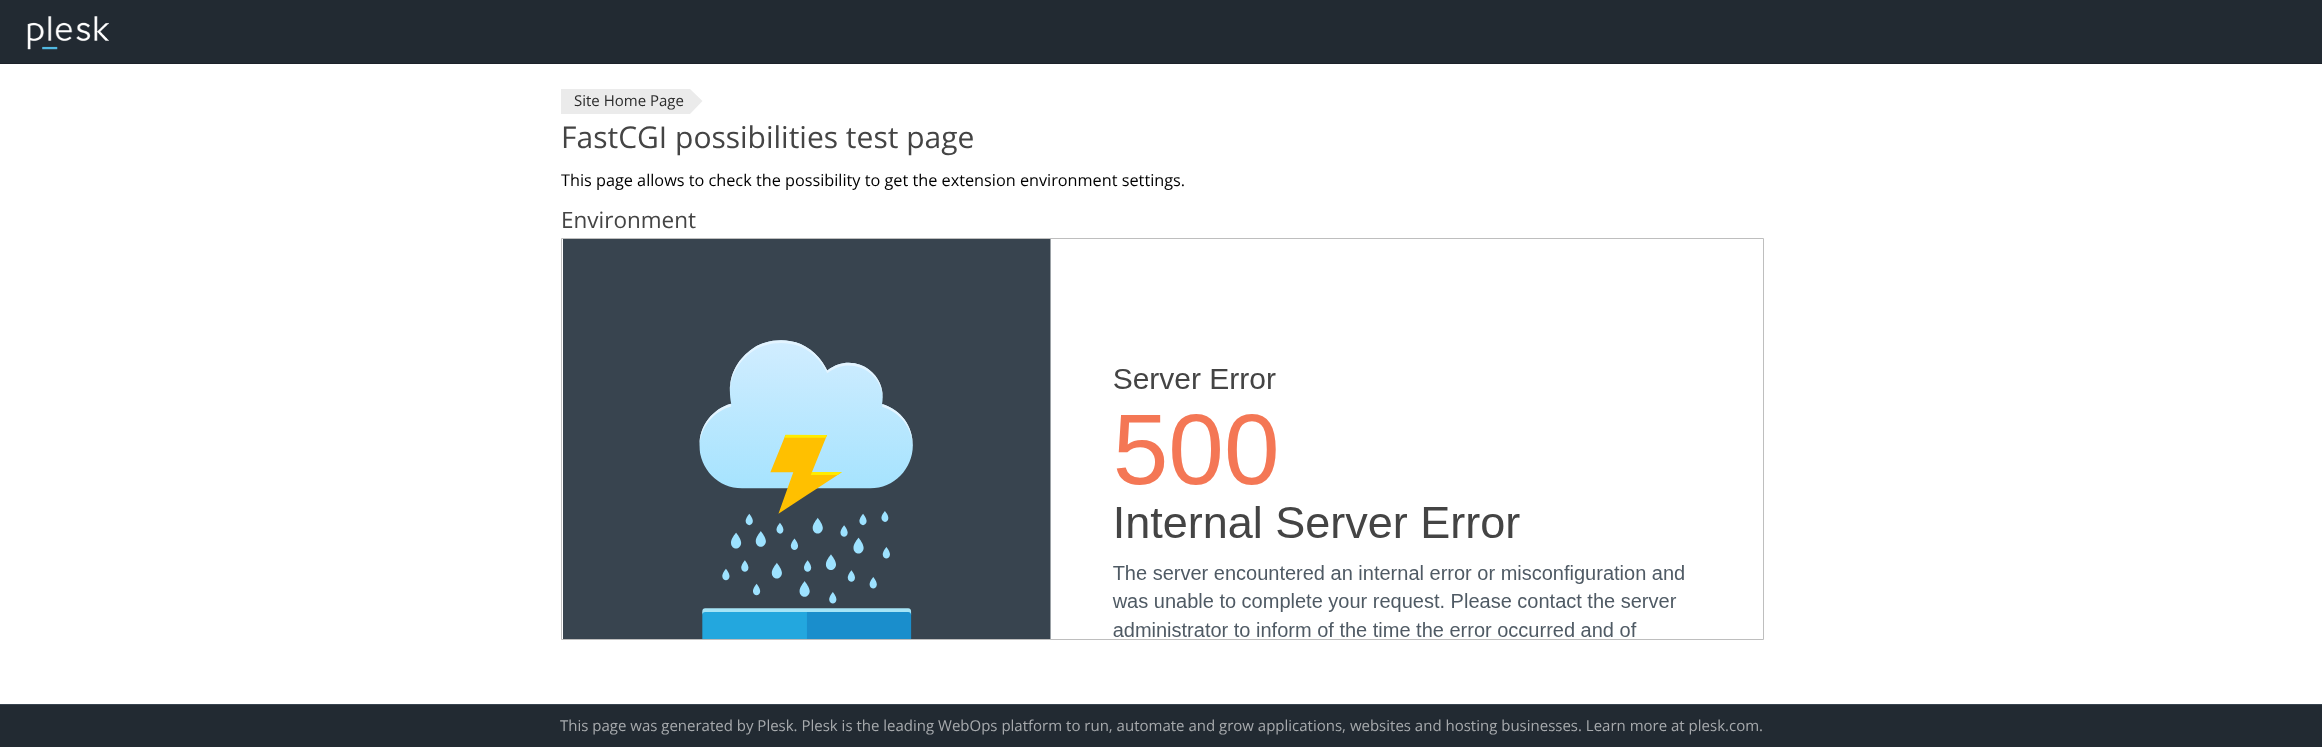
<svg xmlns="http://www.w3.org/2000/svg" width="2322" height="747">
<style>
.a{font:15px Open Sans;fill:#2c2c2c}
.b{font:30px Open Sans;fill:#444}
.c{font:16.25px Open Sans;fill:#000}
.d{font:22.5px Open Sans;fill:#444}
.e{font:15px Open Sans;fill:#a7aaad}
</style>
<rect width="100%" height="100%" fill="#fff"/>
<path fill="#222a32" d="M0 0h2322v63H0z"/>
<path fill="#1c2229" d="M0 63h2322v1H0z"/>
<image href="1.png" x="27" y="16" width="82" height="34"/>
<path fill="#ebebeb" d="M561 89h129v25H561z"/>
<path fill="#ebebeb" d="M690 114v-25l12.5 12z"/>
<path fill="none" stroke="#bebebe" d="M561.5 238.5h1202v401H561.5z"/>
<image href="2.png" x="563" y="239" width="1121" height="400"/>
<path fill="#222a32" d="M0 705h2322v42H0z"/>
<path fill="#38444f" d="M0 704h2322v1H0z"/>
<text class="a" x="574" y="106">Site Home Page</text>
<text class="b" x="561" y="148">FastCGI possibilities test page</text>
<text class="c" x="561" y="186">This page allows to check the possibility to get the extension environment settings.</text>
<text class="d" x="561" y="228">Environment</text>
<text class="e" x="560" y="731">This page was generated by Plesk. Plesk is the leading WebOps platform to run, automate and grow applications, websites and hosting businesses. Learn more at plesk.com.</text>
</svg>
